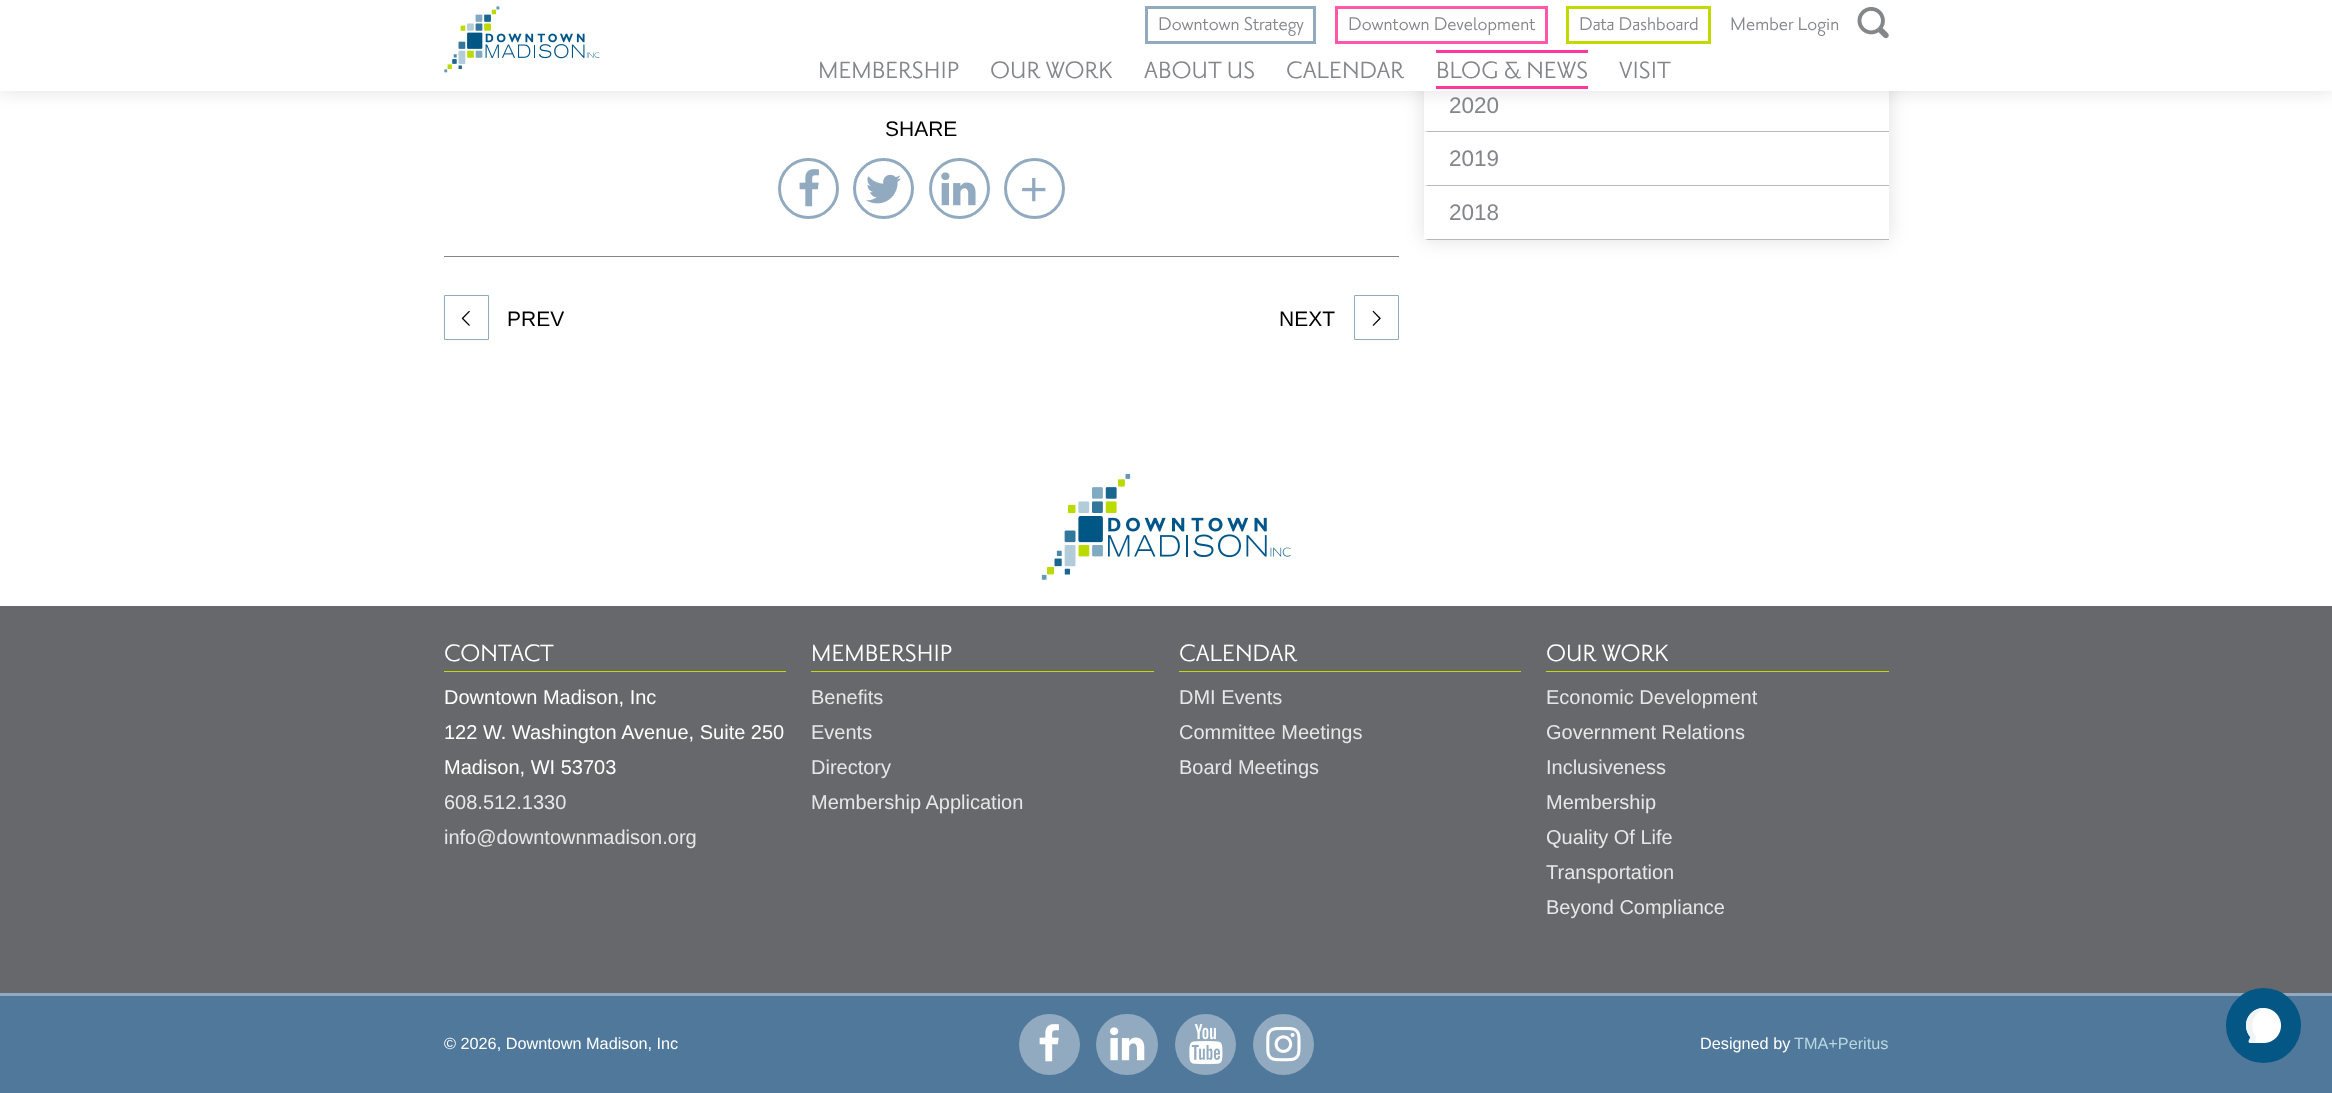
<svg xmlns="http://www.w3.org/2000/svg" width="2332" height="1093">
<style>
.a{font:22.5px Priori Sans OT;fill:#848689}
.b{font:28.75px Priori Sans OT;fill:#848689}
.c{font:21px Liberation Sans;fill:#000}
.d{font:22.5px Liberation Sans;fill:#848689}
.e{font:28.75px Priori Sans OT;fill:#fff}
.f{font:20px Liberation Sans;fill:#fff}
.g{font:20px Liberation Sans;fill:#e6e7e8}
.h{font:16.25px Liberation Sans;fill:#fff}
.i{font:16.25px Liberation Sans;fill:#b8d7e0}
</style>
<rect width="100%" height="100%" fill="#4f789b"/>
<path fill="#fff" d="M0 91h2332v515H0z"/>
<path fill="#848689" d="M444 256h955v1H444z"/>
<path fill="#0000001f" filter="blur(9.5px)" d="M1424 -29h465v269H1424z"/>
<path fill="#fff" d="M1424 91h465v149H1424z"/>
<path fill="#0000001f" filter="blur(9.5px)" d="M0 0h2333v91H0z"/>
<path fill="#fff" d="M0 0h2332v91H0z"/>
<image href="1.png" x="444" y="6" width="156" height="67"/>
<path fill="none" stroke="#91aac0" stroke-width="3" d="M1146.5 7.5h168v35H1146.5z"/>
<path fill="none" stroke="#ff57ae" stroke-width="3" d="M1336.5 7.5h210v35H1336.5z"/>
<path fill="none" stroke="#c2d900" stroke-width="3" d="M1567.5 7.5h142v35H1567.5z"/>
<image href="2.png" x="1857" y="7" width="32" height="32"/>
<path fill="#ff379e" d="M1436 50h152v3H1436z"/>
<path fill="#ff379e" d="M1436 86h152v3H1436z"/>
<circle fill="none" stroke="#91aac0" stroke-width="3" cx="808.5" cy="188.5" r="29"/>
<image href="3.png" x="799" y="169" width="20" height="38"/>
<circle fill="none" stroke="#91aac0" stroke-width="3" cx="883.5" cy="188.5" r="29"/>
<image href="4.png" x="866" y="174" width="35" height="30"/>
<circle fill="none" stroke="#91aac0" stroke-width="3" cx="959.5" cy="188.5" r="29"/>
<image href="5.png" x="941" y="172" width="35" height="34"/>
<circle fill="none" stroke="#91aac0" stroke-width="3" cx="1034.5" cy="188.5" r="29"/>
<image href="6.png" x="1022" y="177" width="24" height="25"/>
<path fill="none" stroke="#91aac0" d="M444.5 295.5h44v44H444.5z"/>
<image href="7.png" x="461" y="310" width="9" height="16"/>
<path fill="none" stroke="#91aac0" d="M1354.5 295.5h44v44H1354.5z"/>
<image href="8.png" x="1372" y="310" width="9" height="16"/>
<path fill="#b6b8ba" d="M1889 132h-465l4-1h461z"/>
<path fill="#b6b8ba" d="M1889 186h-465l4-1h461z"/>
<path fill="#b6b8ba" d="M1889 240h-465l4-1h461z"/>
<image href="9.png" x="1041" y="474" width="250" height="106"/>
<path fill="#67686b" d="M0 606h2332v387H0z"/>
<path fill="#c2d900" d="M444 671h342v1H444z"/>
<path fill="#c2d900" d="M811 671h343v1H811z"/>
<path fill="#c2d900" d="M1179 671h342v1H1179z"/>
<path fill="#c2d900" d="M1546 671h343v1H1546z"/>
<path fill="#91aac0" d="M0 993h2332v3H0z"/>
<circle fill="#91aac0" cx="1049.5" cy="1044.5" r="30.5"/>
<image href="10.png" x="1039" y="1024" width="20" height="38"/>
<rect fill="#91aac0" x="1096" y="1014" width="62" height="61" rx="30.5"/>
<image href="11.png" x="1110" y="1027" width="35" height="34"/>
<circle fill="#91aac0" cx="1205.5" cy="1044.5" r="30.5"/>
<image href="12.png" x="1189" y="1024" width="34" height="41"/>
<circle fill="#91aac0" cx="1283.5" cy="1044.5" r="30.5"/>
<image href="13.png" x="1266" y="1026" width="35" height="36"/>
<circle fill="#045684" cx="2263.5" cy="1025.5" r="37.5"/>
<image href="14.png" x="2246" y="1008" width="35" height="35"/>
<text class="a" x="1158" y="30">Downtown Strategy</text>
<text class="a" x="1348" y="30">Downtown Development</text>
<text class="a" x="1579" y="30">Data Dashboard</text>
<text class="a" x="1730" y="30">Member Login</text>
<text class="b" x="818" y="78">MEMBERSHIP</text>
<text class="b" x="990" y="78">OUR WORK</text>
<text class="b" x="1144" y="78">ABOUT US</text>
<text class="b" x="1286" y="78">CALENDAR</text>
<text class="b" x="1436" y="78">BLOG &amp; NEWS</text>
<text class="b" x="1619" y="78">VISIT</text>
<text class="c" x="885" y="136">SHARE</text>
<text class="c" x="507" y="326">PREV</text>
<text class="c" x="1279" y="326">NEXT</text>
<text class="d" x="1449" y="113">2020</text>
<text class="d" x="1449" y="166">2019</text>
<text class="d" x="1449" y="220">2018</text>
<text class="e" x="444" y="661">CONTACT</text>
<text class="f" x="444" y="704">Downtown Madison, Inc</text>
<text class="f" x="444" y="739">122 W. Washington Avenue, Suite 250</text>
<text class="f" x="444" y="774">Madison, WI 53703</text>
<text class="g" x="444" y="809">608.512.1330</text>
<text class="g" x="444" y="844">info@downtownmadison.org</text>
<text class="e" x="811" y="661">MEMBERSHIP</text>
<text class="g" x="811" y="704">Benefits</text>
<text class="g" x="811" y="739">Events</text>
<text class="g" x="811" y="774">Directory</text>
<text class="g" x="811" y="809">Membership Application</text>
<text class="e" x="1179" y="661">CALENDAR</text>
<text class="g" x="1179" y="704">DMI Events</text>
<text class="g" x="1179" y="739">Committee Meetings</text>
<text class="g" x="1179" y="774">Board Meetings</text>
<text class="e" x="1546" y="661">OUR WORK</text>
<text class="g" x="1546" y="704">Economic Development</text>
<text class="g" x="1546" y="739">Government Relations</text>
<text class="g" x="1546" y="774">Inclusiveness</text>
<text class="g" x="1546" y="809">Membership</text>
<text class="g" x="1546" y="844">Quality Of Life</text>
<text class="g" x="1546" y="879">Transportation</text>
<text class="g" x="1546" y="914">Beyond Compliance</text>
<text class="h" x="444" y="1049">© 2026, Downtown Madison, Inc</text>
<text class="h" x="1700" y="1049">Designed by</text>
<text class="i" x="1794" y="1049">TMA+Peritus</text>
</svg>
